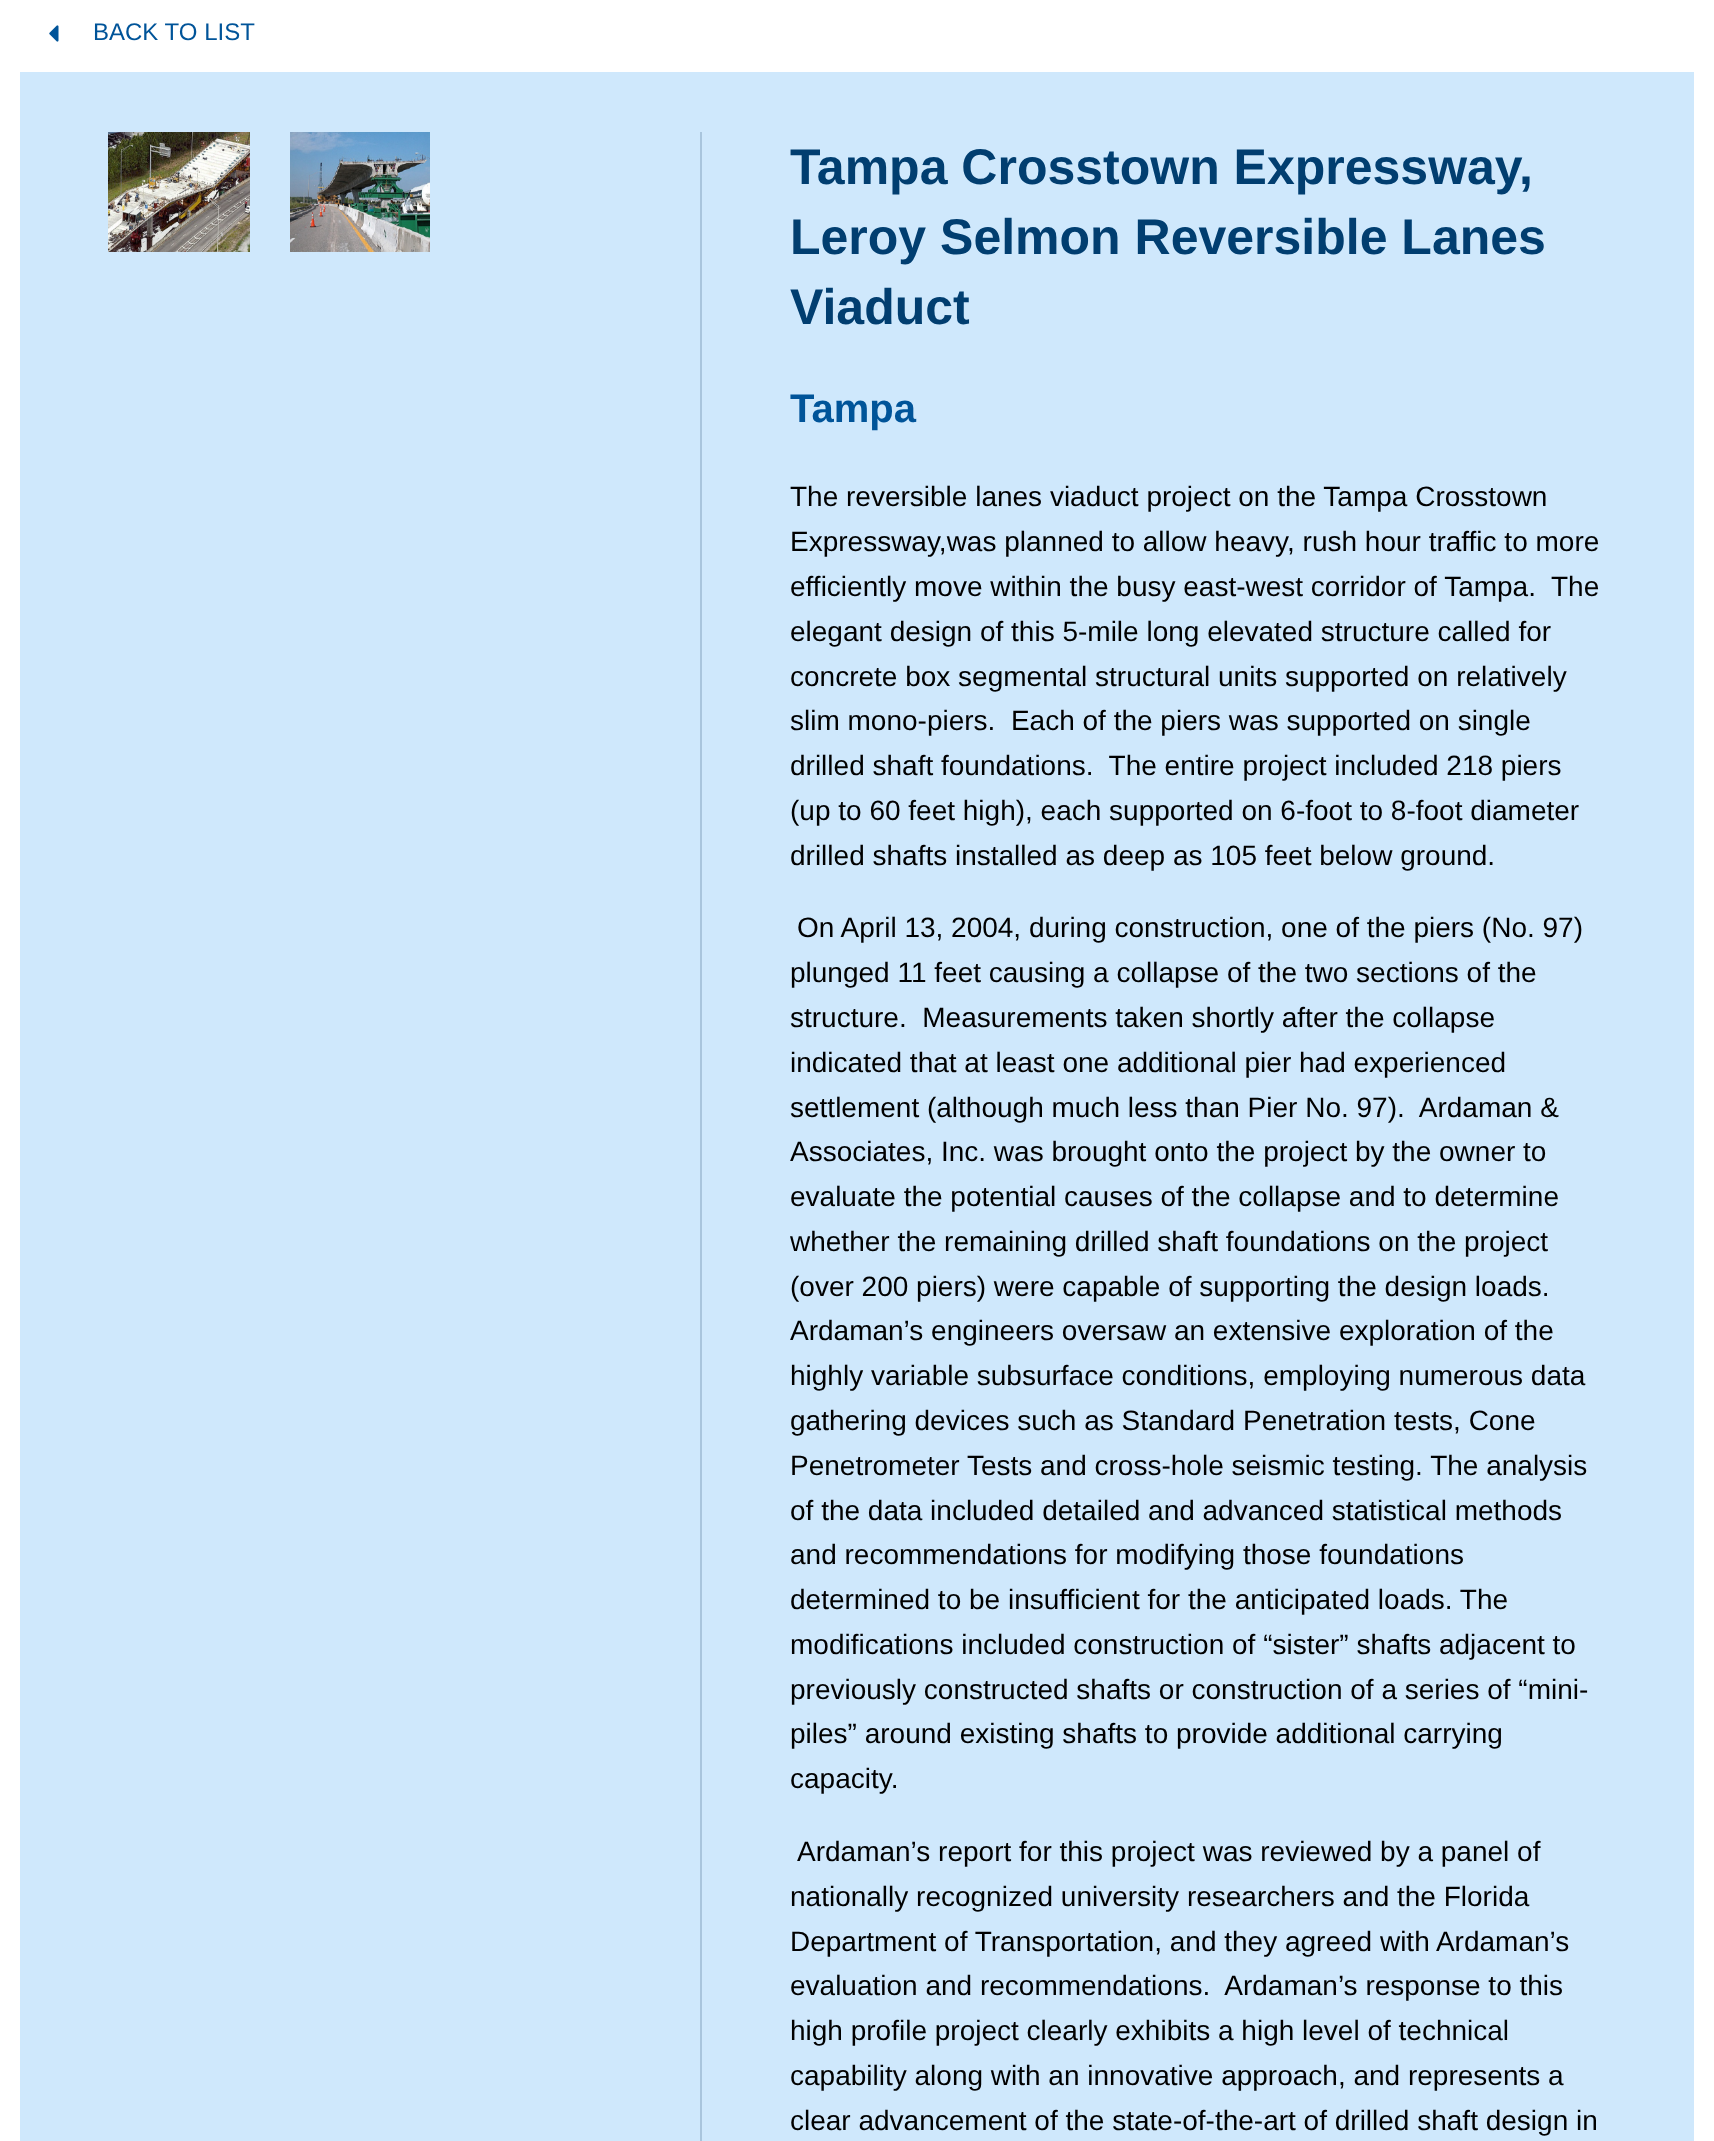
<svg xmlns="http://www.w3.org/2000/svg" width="1714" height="2141">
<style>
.a{font:24px Liberation Sans;fill:#005499}
.b{font:bold 50px Liberation Sans;fill:#013e70}
.c{font:bold 40px Liberation Sans;fill:#005499}
.d{font:28px Liberation Sans;fill:#000}
</style>
<rect width="100%" height="100%" fill="#fff"/>
<image href="1.png" x="49" y="25" width="10" height="17"/>
<path fill="#cfe8fc" d="M20 72h1674v2069H20z"/>
<path fill="#a9c5dd" d="M700 132h2v2009H700z"/>
<image href="2.png" x="108" y="132" width="142" height="120"/>
<image href="3.png" x="290" y="132" width="140" height="120"/>
<text class="a" x="93" y="40">BACK TO LIST</text>
<text class="b" x="790" y="184">Tampa Crosstown Expressway,</text>
<text class="b" x="790" y="254">Leroy Selmon Reversible Lanes</text>
<text class="b" x="790" y="324">Viaduct</text>
<text class="c" x="790" y="422">Tampa</text>
<text class="d" x="790" y="506">The reversible lanes viaduct project on the Tampa Crosstown</text>
<text class="d" x="790" y="551">Expressway,was planned to allow heavy, rush hour traffic to more</text>
<text class="d" xml:space="preserve" x="790" y="596">efficiently move within the busy east-west corridor of Tampa.  The</text>
<text class="d" x="790" y="641">elegant design of this 5-mile long elevated structure called for</text>
<text class="d" x="790" y="686">concrete box segmental structural units supported on relatively</text>
<text class="d" xml:space="preserve" x="790" y="730">slim mono-piers.  Each of the piers was supported on single</text>
<text class="d" xml:space="preserve" x="790" y="775">drilled shaft foundations.  The entire project included 218 piers</text>
<text class="d" x="790" y="820">(up to 60 feet high), each supported on 6-foot to 8-foot diameter</text>
<text class="d" x="790" y="865">drilled shafts installed as deep as 105 feet below ground.</text>
<text class="d" x="797" y="937">On April 13, 2004, during construction, one of the piers (No. 97)</text>
<text class="d" x="790" y="982">plunged 11 feet causing a collapse of the two sections of the</text>
<text class="d" xml:space="preserve" x="790" y="1027">structure.  Measurements taken shortly after the collapse</text>
<text class="d" x="790" y="1072">indicated that at least one additional pier had experienced</text>
<text class="d" xml:space="preserve" x="790" y="1117">settlement (although much less than Pier No. 97).  Ardaman &amp;</text>
<text class="d" x="790" y="1161">Associates, Inc. was brought onto the project by the owner to</text>
<text class="d" x="790" y="1206">evaluate the potential causes of the collapse and to determine</text>
<text class="d" x="790" y="1251">whether the remaining drilled shaft foundations on the project</text>
<text class="d" x="790" y="1296">(over 200 piers) were capable of supporting the design loads.</text>
<text class="d" x="790" y="1340">Ardaman’s engineers oversaw an extensive exploration of the</text>
<text class="d" x="790" y="1385">highly variable subsurface conditions, employing numerous data</text>
<text class="d" x="790" y="1430">gathering devices such as Standard Penetration tests, Cone</text>
<text class="d" x="790" y="1475">Penetrometer Tests and cross-hole seismic testing. The analysis</text>
<text class="d" x="790" y="1520">of the data included detailed and advanced statistical methods</text>
<text class="d" x="790" y="1564">and recommendations for modifying those foundations</text>
<text class="d" x="790" y="1609">determined to be insufficient for the anticipated loads. The</text>
<text class="d" x="790" y="1654">modifications included construction of “sister” shafts adjacent to</text>
<text class="d" x="790" y="1699">previously constructed shafts or construction of a series of “mini-</text>
<text class="d" x="790" y="1743">piles” around existing shafts to provide additional carrying</text>
<text class="d" x="790" y="1788">capacity.</text>
<text class="d" x="797" y="1861">Ardaman’s report for this project was reviewed by a panel of</text>
<text class="d" x="790" y="1906">nationally recognized university researchers and the Florida</text>
<text class="d" x="790" y="1951">Department of Transportation, and they agreed with Ardaman’s</text>
<text class="d" xml:space="preserve" x="790" y="1995">evaluation and recommendations.  Ardaman’s response to this</text>
<text class="d" x="790" y="2040">high profile project clearly exhibits a high level of technical</text>
<text class="d" x="790" y="2085">capability along with an innovative approach, and represents a</text>
<text class="d" x="790" y="2130">clear advancement of the state-of-the-art of drilled shaft design in</text>
</svg>
